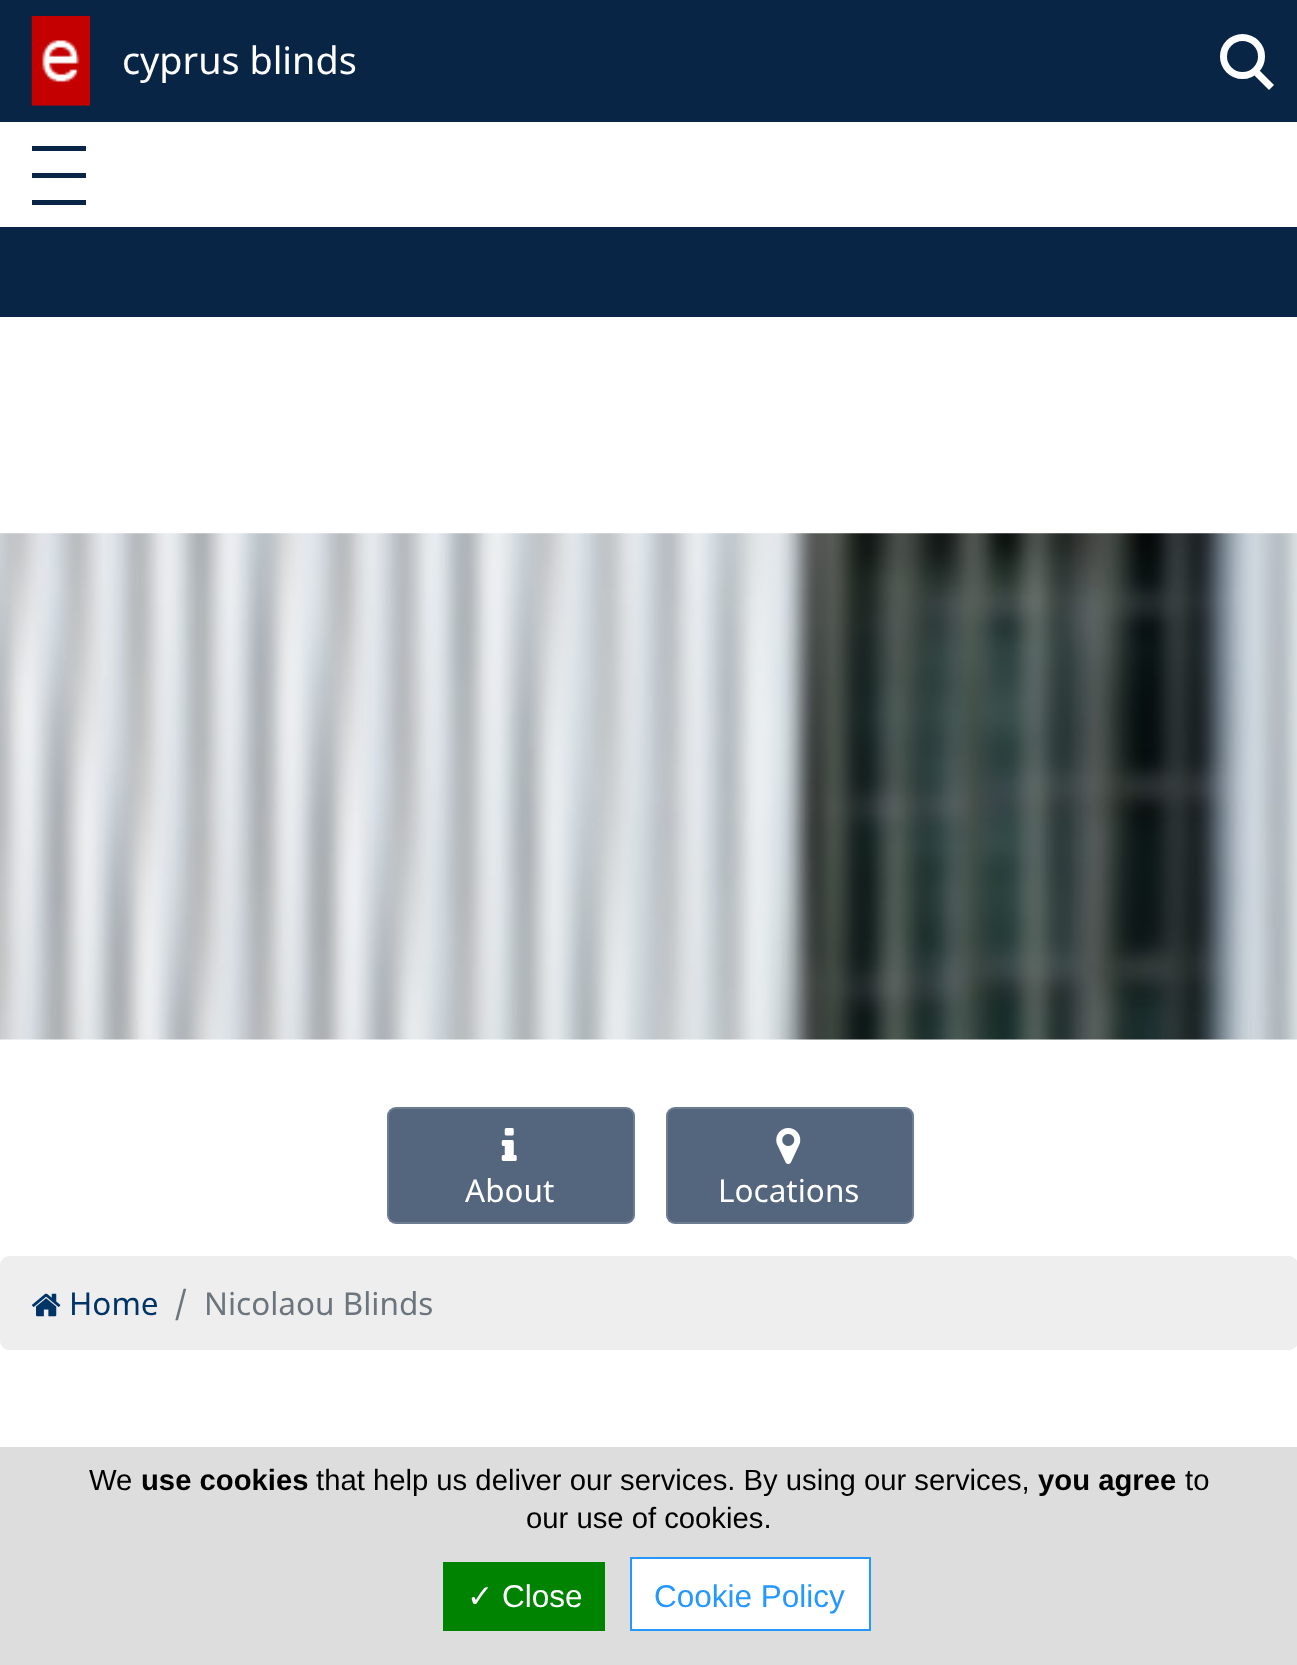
<svg xmlns="http://www.w3.org/2000/svg" width="1297" height="1665">
<style>
.a{font:37.75px Noto Sans;fill:#fff}
.b{font:31.5px Noto Sans;fill:#fff}
.c{font:31.5px Noto Sans;fill:#003466}
.d{font:31.5px Noto Sans;fill:#6c757d}
.e{font:29.25px Liberation Sans;fill:#000}
.f{font:bold 29.25px Liberation Sans;fill:#000}
.g{font:31.5px DejaVu Sans;fill:#fff}
.h{font:31.5px Liberation Sans;fill:#fff}
.i{font:31.5px Liberation Sans;fill:#2598ff}
</style>
<rect width="100%" height="100%" fill="#fff"/>
<path fill="#092546" d="M0 0h1297v122H0z"/>
<image href="1.png" x="31" y="15" width="59" height="91"/>
<circle fill="none" stroke="#fff" stroke-width="7" cx="1242.5" cy="56.5" r="19"/>
<path fill="#fff" d="M1259.5 70.5l14.5 14.5l-5 5l-14.5-14.5z"/>
<path fill="#092546" d="M32 173h54v5H32z"/>
<path fill="#092546" d="M32 146h54v5H32z"/>
<path fill="#092546" d="M32 200h54v5H32z"/>
<path fill="#092546" d="M0 227h1297v90H0z"/>
<image href="2.png" x="0" y="533" width="1297" height="507"/>
<rect fill="#53667e" x="387" y="1107" width="248" height="117" rx="9"/>
<rect fill="none" stroke="#ffffff26" stroke-width="2" x="388" y="1108" width="246" height="115" rx="8"/>
<image href="3.png" x="501" y="1128" width="16" height="33"/>
<rect fill="#53667e" x="666" y="1107" width="248" height="117" rx="9"/>
<rect fill="none" stroke="#ffffff26" stroke-width="2" x="667" y="1108" width="246" height="115" rx="8"/>
<image href="4.png" x="776" y="1128" width="25" height="36"/>
<rect fill="#eee" y="1256" width="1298" height="94" rx="9"/>
<image href="5.png" x="32" y="1293" width="29" height="24"/>
<path fill="#ddd" d="M0 1447h1297v218H0z"/>
<path fill="#008300" d="M443 1562h162v69H443z"/>
<path fill="#fff" stroke="#2598ff" stroke-width="2" d="M631 1558h239v72H631z"/>
<text class="a" x="122" y="74">cyprus blinds</text>
<text class="b" x="465" y="1202">About</text>
<text class="b" x="718" y="1202">Locations</text>
<text class="c" x="69" y="1315">Home</text>
<text class="d" x="174" y="1315">/</text>
<text class="d" x="204" y="1315">Nicolaou Blinds</text>
<text class="e" x="89" y="1490">We</text>
<text class="f" x="141" y="1490">use cookies</text>
<text class="e" x="316" y="1490">that help us deliver our services. By using our services,</text>
<text class="f" x="1038" y="1490">you agree</text>
<text class="e" x="1185" y="1490">to</text>
<text class="e" x="526" y="1528">our use of cookies.</text>
<text class="g" x="467" y="1607">✓</text>
<text class="h" x="502" y="1607">Close</text>
<text class="i" x="654" y="1607">Cookie Policy</text>
</svg>
